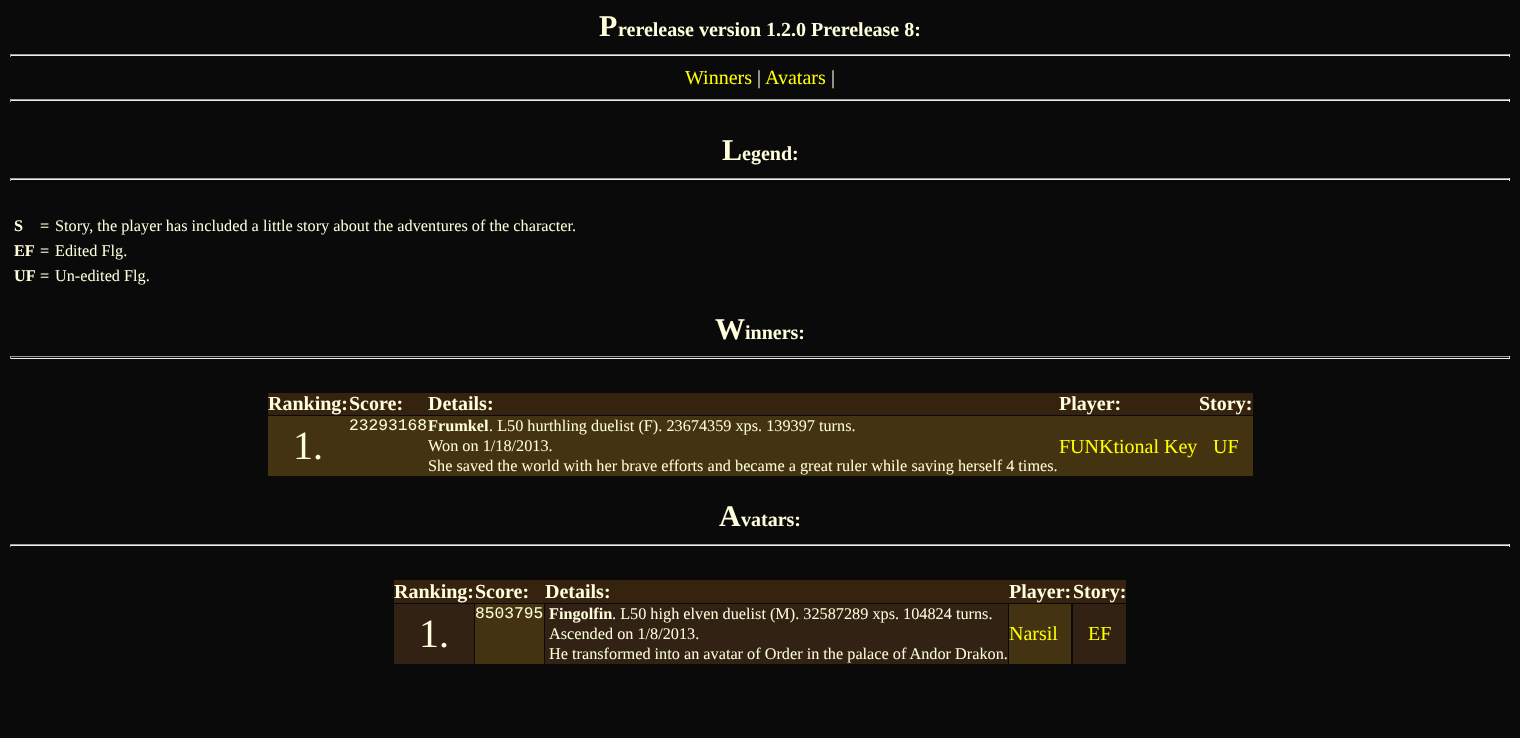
<svg xmlns="http://www.w3.org/2000/svg" width="1520" height="738">
<style>
.a{font:bold 30px Liberation Serif;fill:#fffedd}
.b{font:bold 20px Liberation Serif;fill:#fffedd}
.c{font:20px Liberation Serif;fill:#ff0}
.d{font:20px Liberation Serif;fill:#fffedd}
.e{font:bold 16.25px Liberation Serif;fill:#fffedd}
.f{font:16.25px Liberation Serif;fill:#fffedd}
.g{font:40px Liberation Serif;fill:#fffedd}
.h{font:16.25px Liberation Mono;fill:#fffedd}
</style>
<rect width="100%" height="100%" fill="#0a0a0a"/>
<path fill="#9f9f9f" d="M10 54h1500v1H10z"/>
<path fill="#eee" d="M1509 54h1v3H1509z"/>
<path fill="#eee" d="M10 55h1500v1H10z"/>
<path fill="#9f9f9f" d="M10 54h1v3H10z"/>
<path fill="#9f9f9f" d="M10 99h1500v1H10z"/>
<path fill="#eee" d="M1509 99h1v3H1509z"/>
<path fill="#eee" d="M10 100h1500v1H10z"/>
<path fill="#9f9f9f" d="M10 99h1v3H10z"/>
<path fill="#9f9f9f" d="M10 178h1500v1H10z"/>
<path fill="#eee" d="M1509 178h1v3H1509z"/>
<path fill="#eee" d="M10 179h1500v1H10z"/>
<path fill="#9f9f9f" d="M10 178h1v3H10z"/>
<path fill="#9f9f9f" d="M10 356h1500v1H10z"/>
<path fill="#eee" d="M1509 356h1v3H1509z"/>
<path fill="#eee" d="M10 358h1500v1H10z"/>
<path fill="#9f9f9f" d="M10 356h1v3H10z"/>
<path fill="#35220f" d="M268 393h985v22H268z"/>
<path fill="#431" d="M268 416h985v60H268z"/>
<path fill="#9f9f9f" d="M10 544h1500v1H10z"/>
<path fill="#eee" d="M1509 544h1v3H1509z"/>
<path fill="#eee" d="M10 545h1500v1H10z"/>
<path fill="#9f9f9f" d="M10 544h1v3H10z"/>
<path fill="#35220f" d="M394 580h732v23H394z"/>
<path fill="#312213" d="M394 604h80v60H394z"/>
<path fill="#431" d="M475 604h69v60H475z"/>
<path fill="#312213" d="M545 604h463v60H545z"/>
<path fill="#431" d="M1009 604h62v60H1009z"/>
<path fill="#312213" d="M1073 604h53v60H1073z"/>
<text class="a" x="599" y="36">P</text>
<text class="b" x="618" y="36">rerelease version 1.2.0 Prerelease 8:</text>
<text class="c" x="685" y="84">Winners</text>
<text class="d" x="757" y="84">|</text>
<text class="c" x="765" y="84">Avatars</text>
<text class="d" x="831" y="84">|</text>
<text class="a" x="722" y="160">L</text>
<text class="b" x="742" y="160">egend:</text>
<text class="e" x="14" y="231">S</text>
<text class="f" x="40" y="231">=</text>
<text class="f" x="55" y="231">Story, the player has included a little story about the adventures of the character.</text>
<text class="e" x="14" y="256">EF</text>
<text class="f" x="40" y="256">=</text>
<text class="f" x="55" y="256">Edited Flg.</text>
<text class="e" x="14" y="281">UF</text>
<text class="f" x="40" y="281">=</text>
<text class="f" x="55" y="281">Un-edited Flg.</text>
<text class="a" x="715" y="339">W</text>
<text class="b" x="745" y="339">inners:</text>
<text class="b" x="268" y="410">Ranking:</text>
<text class="b" x="349" y="410">Score:</text>
<text class="b" x="428" y="410">Details:</text>
<text class="b" x="1059" y="410">Player:</text>
<text class="b" x="1199" y="410">Story:</text>
<text class="g" x="293" y="459">1.</text>
<text class="h" x="349" y="430">23293168</text>
<text class="e" x="428" y="431">Frumkel</text>
<text class="f" x="489" y="431">. L50 hurthling duelist (F). 23674359 xps. 139397 turns.</text>
<text class="f" x="428" y="451">Won on 1/18/2013.</text>
<text class="f" x="428" y="471">She saved the world with her brave efforts and became a great ruler while saving herself 4 times.</text>
<text class="c" x="1059" y="453">FUNKtional Key</text>
<text class="c" x="1213" y="453">UF</text>
<text class="a" x="719" y="526">A</text>
<text class="b" x="741" y="526">vatars:</text>
<text class="b" x="394" y="598">Ranking:</text>
<text class="b" x="475" y="598">Score:</text>
<text class="b" x="545" y="598">Details:</text>
<text class="b" x="1009" y="598">Player:</text>
<text class="b" x="1073" y="598">Story:</text>
<text class="g" x="419" y="647">1.</text>
<text class="h" x="475" y="618">8503795</text>
<text class="e" x="549" y="619">Fingolfin</text>
<text class="f" x="612" y="619">. L50 high elven duelist (M). 32587289 xps. 104824 turns.</text>
<text class="f" x="549" y="639">Ascended on 1/8/2013.</text>
<text class="f" x="549" y="659">He transformed into an avatar of Order in the palace of Andor Drakon.</text>
<text class="c" x="1009" y="640">Narsil</text>
<text class="c" x="1088" y="640">EF</text>
</svg>
